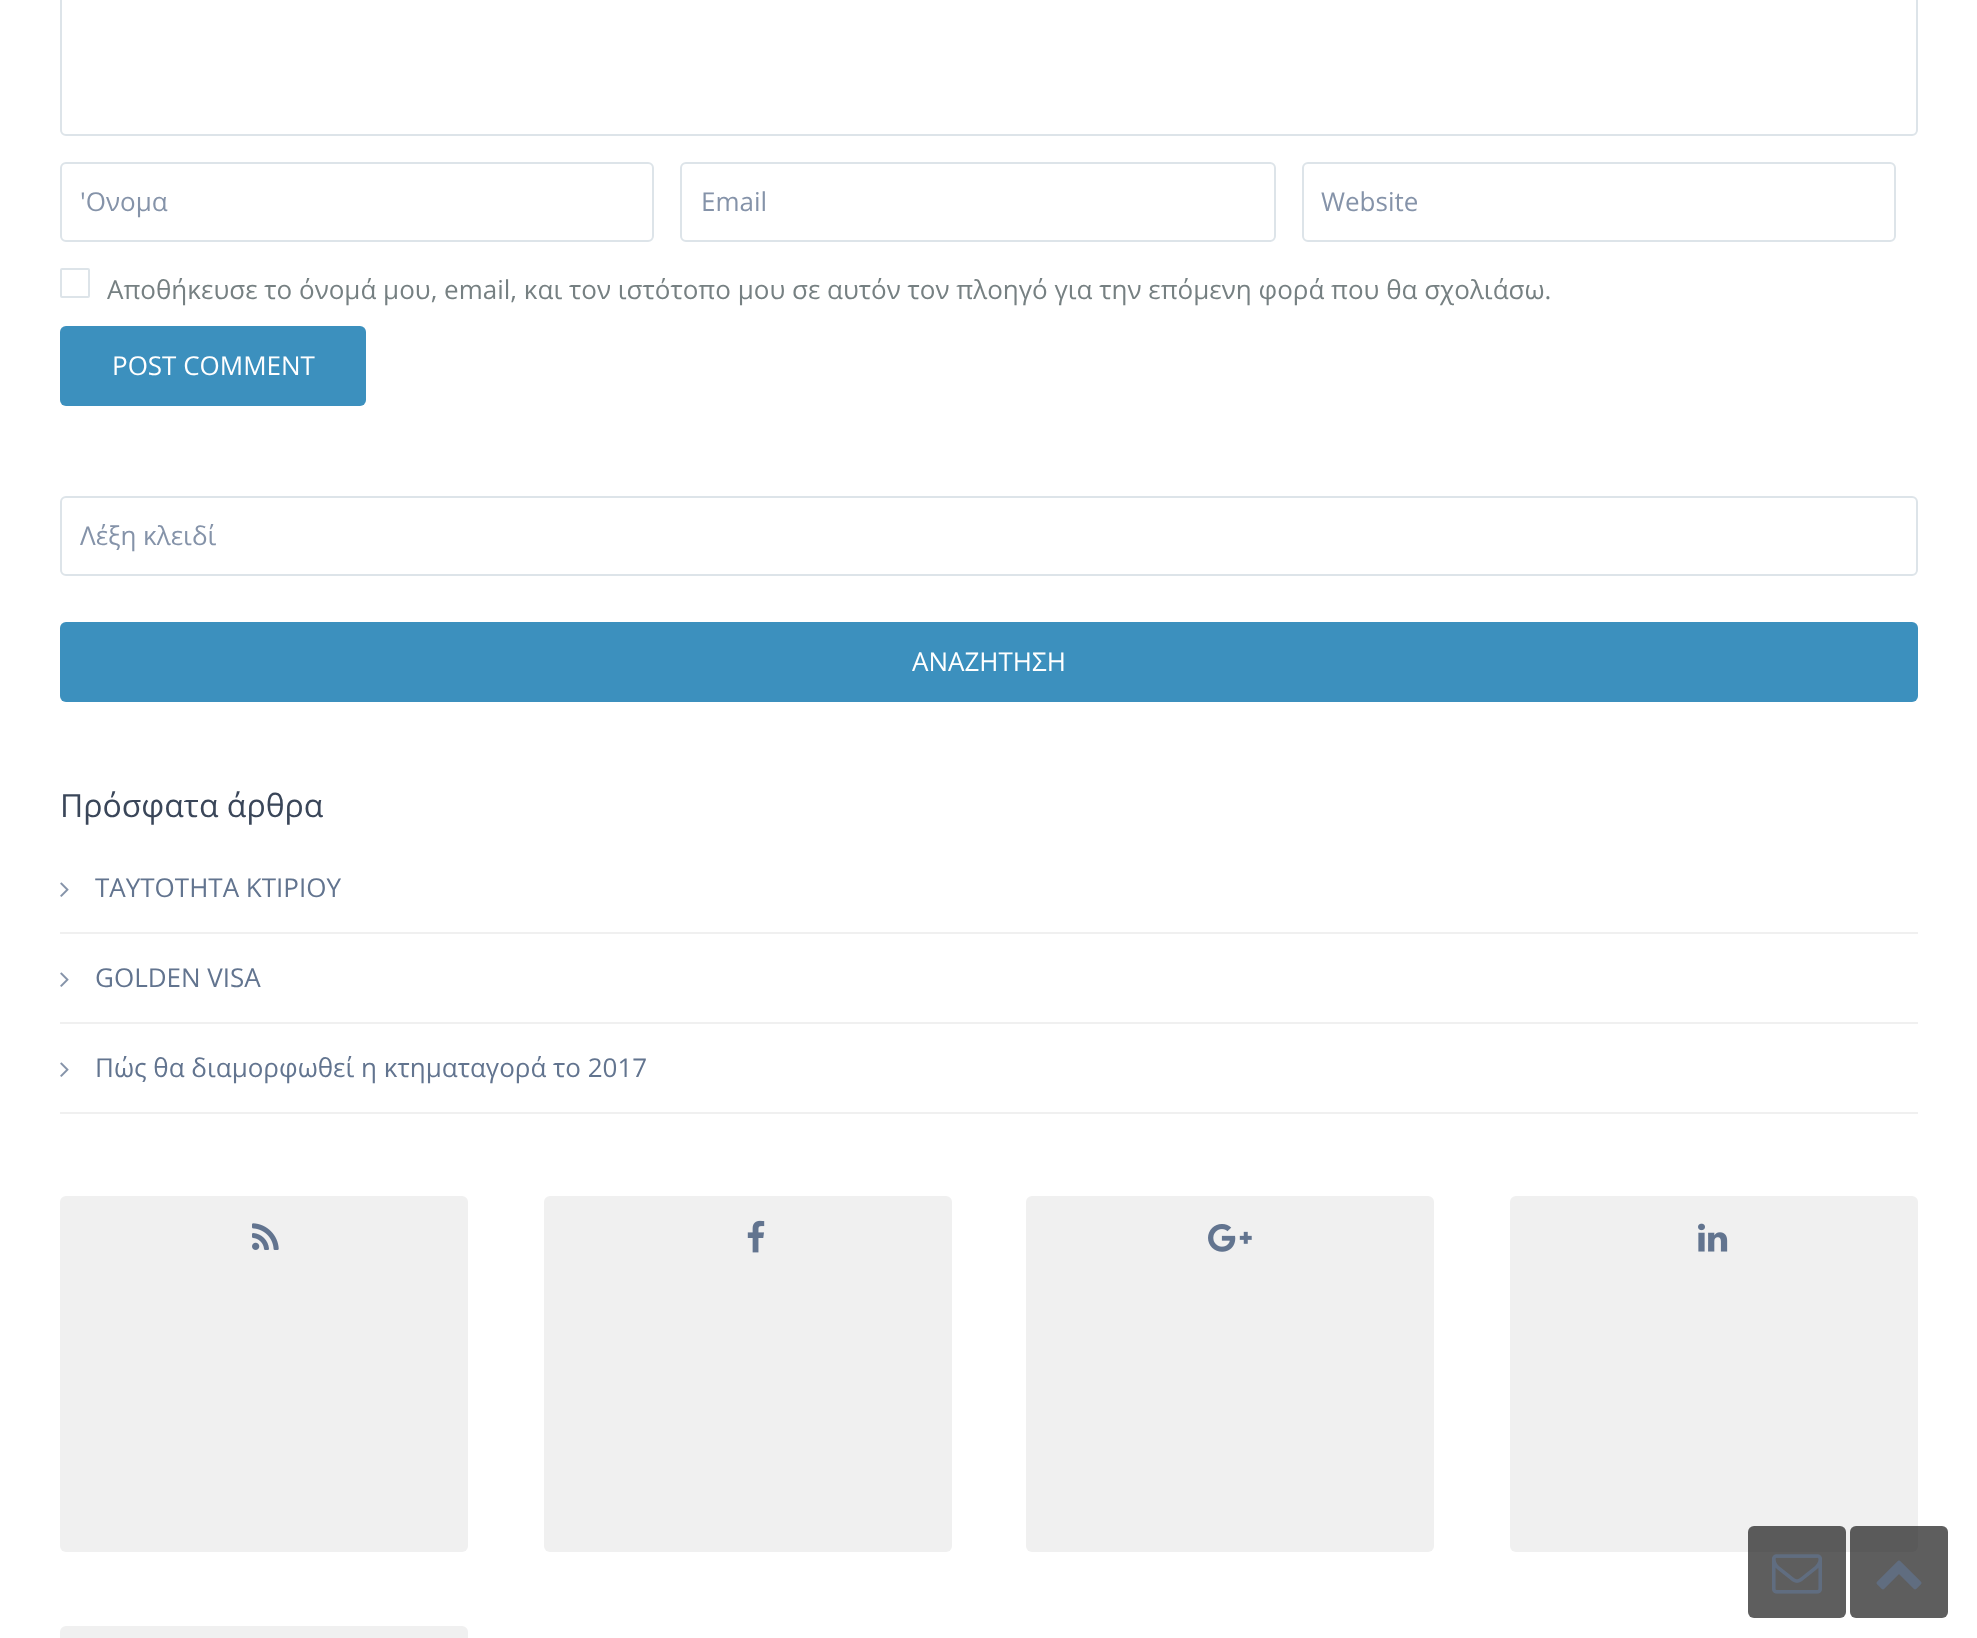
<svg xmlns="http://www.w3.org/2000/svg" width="1977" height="1638">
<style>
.a{font:26px Open Sans;fill:#8593a9}
.b{font:26px Open Sans;fill:#768082}
.c{font:26px Open Sans;fill:#fff}
.d{font:32px Open Sans;fill:#3a4659}
.e{font:26px Open Sans;fill:#62748f}
</style>
<rect width="100%" height="100%" fill="#fff"/>
<rect fill="none" stroke="#dde4e9" stroke-width="2" x="61" y="-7" width="1856" height="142" rx="5"/>
<rect fill="none" stroke="#dde4e9" stroke-width="2" x="61" y="163" width="592" height="78" rx="5"/>
<rect fill="none" stroke="#dde4e9" stroke-width="2" x="681" y="163" width="594" height="78" rx="5"/>
<rect fill="none" stroke="#dde4e9" stroke-width="2" x="1303" y="163" width="592" height="78" rx="5"/>
<rect fill="none" stroke="#dde4e9" stroke-width="2" x="61" y="269" width="28" height="28" rx="1"/>
<rect fill="#3c90be" x="60" y="326" width="306" height="80" rx="6"/>
<rect fill="none" stroke="#dde4e9" stroke-width="2" x="61" y="497" width="1856" height="78" rx="5"/>
<rect fill="#3c90be" x="60" y="622" width="1858" height="80" rx="6"/>
<path fill="#f0f0f0" d="M60 932h1858v2H60z"/>
<image href="1.png" x="60" y="882" width="9" height="15"/>
<path fill="#f0f0f0" d="M60 1022h1858v2H60z"/>
<image href="1.png" x="60" y="972" width="9" height="15"/>
<path fill="#f0f0f0" d="M60 1112h1858v2H60z"/>
<image href="1.png" x="60" y="1062" width="9" height="15"/>
<rect fill="#f0f0f0" x="60" y="1196" width="408" height="356" rx="6"/>
<image href="2.png" x="252" y="1223" width="27" height="27"/>
<rect fill="#f0f0f0" x="544" y="1196" width="408" height="356" rx="6"/>
<image href="3.png" x="747" y="1220" width="18" height="33"/>
<rect fill="#f0f0f0" x="1026" y="1196" width="408" height="356" rx="6"/>
<image href="4.png" x="1208" y="1224" width="44" height="28"/>
<rect fill="#f0f0f0" x="1510" y="1196" width="408" height="356" rx="6"/>
<image href="5.png" x="1698" y="1223" width="30" height="29"/>
<rect fill="#f0f0f0" x="60" y="1626" width="408" height="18" rx="6"/>
<rect fill="#1a1a1ab3" x="1748" y="1526" width="98" height="92" rx="6"/>
<image href="6.png" x="1772" y="1554" width="50" height="40"/>
<rect fill="#1a1a1ab3" x="1850" y="1526" width="98" height="92" rx="6"/>
<image href="7.png" x="1876" y="1560" width="46" height="30"/>
<text class="a" x="80" y="211">'Ονομα</text>
<text class="a" x="701" y="211">Email</text>
<text class="a" x="1321" y="211">Website</text>
<text class="b" x="107" y="299">Αποθήκευσε το όνομά μου, email, και τον ιστότοπο μου σε αυτόν τον πλοηγό για την επόμενη φορά που θα σχολιάσω.</text>
<text class="c" x="112" y="375">POST COMMENT</text>
<text class="a" x="80" y="545">Λέξη κλειδί</text>
<text class="c" x="912" y="671">ΑΝΑΖΗΤΗΣΗ</text>
<text class="d" x="60" y="817">Πρόσφατα άρθρα</text>
<text class="e" x="95" y="897">ΤΑΥΤΟΤΗΤΑ ΚΤΙΡΙΟΥ</text>
<text class="e" x="95" y="987">GOLDEN VISA</text>
<text class="e" x="95" y="1077">Πώς θα διαμορφωθεί η κτηματαγορά το 2017</text>
</svg>
